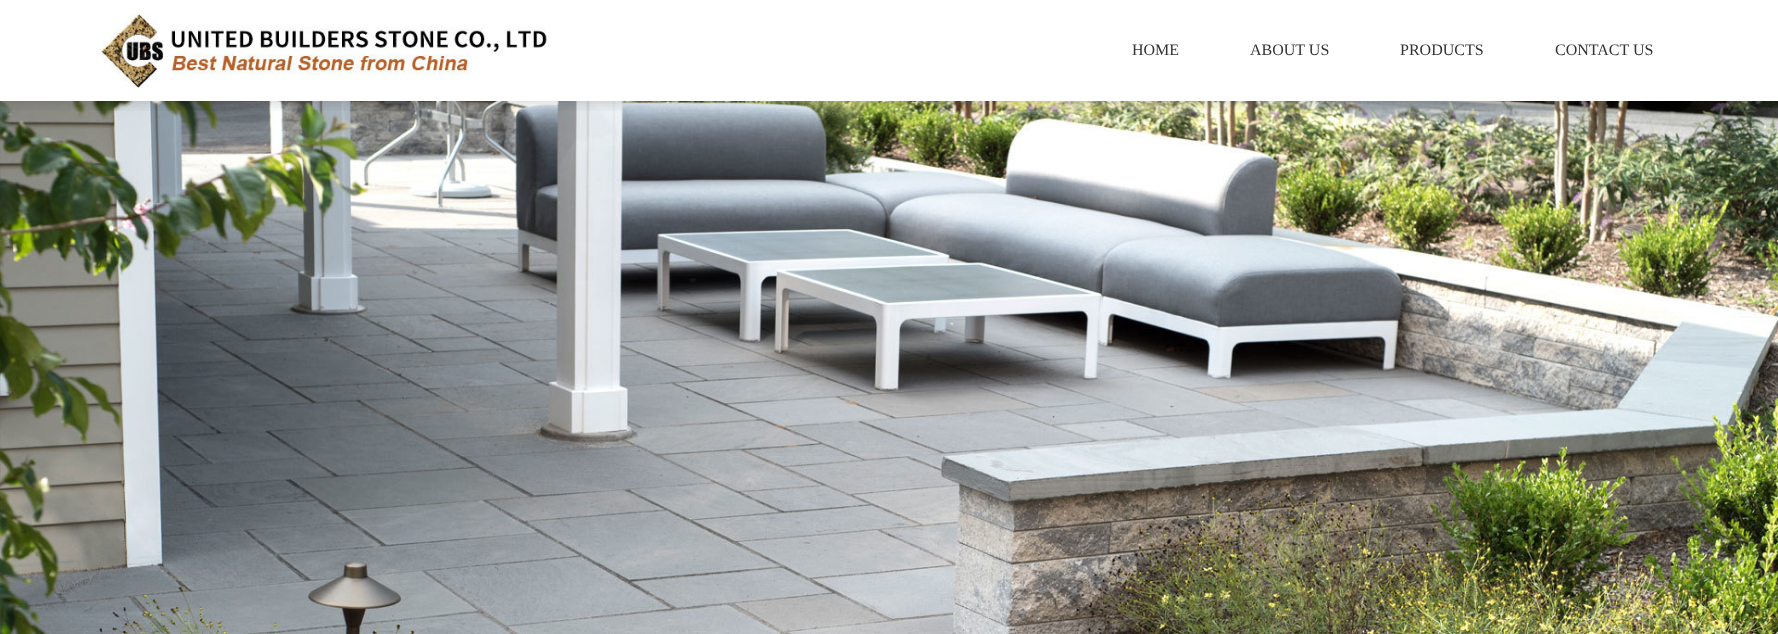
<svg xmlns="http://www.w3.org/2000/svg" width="1778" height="634">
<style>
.a{font:16px Liberation Serif;fill:#333}
</style>
<defs>
<clipPath id="clip1"><path d="M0 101h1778v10H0z"/></clipPath>
</defs>
<rect width="100%" height="100%" fill="#fff"/>
<image href="2.png" x="0" y="101" width="1778" height="533"/>
<g clip-path="url(#clip1)">
<path fill="#00000033" filter="blur(7.5px)" d="M0 0h1778v101H0z"/>
</g>
<image href="1.png" x="96" y="13" width="453" height="75"/>
<text class="a" x="1132" y="55">HOME</text>
<text class="a" x="1250" y="55">ABOUT US</text>
<text class="a" x="1400" y="55">PRODUCTS</text>
<text class="a" x="1555" y="55">CONTACT US</text>
</svg>
